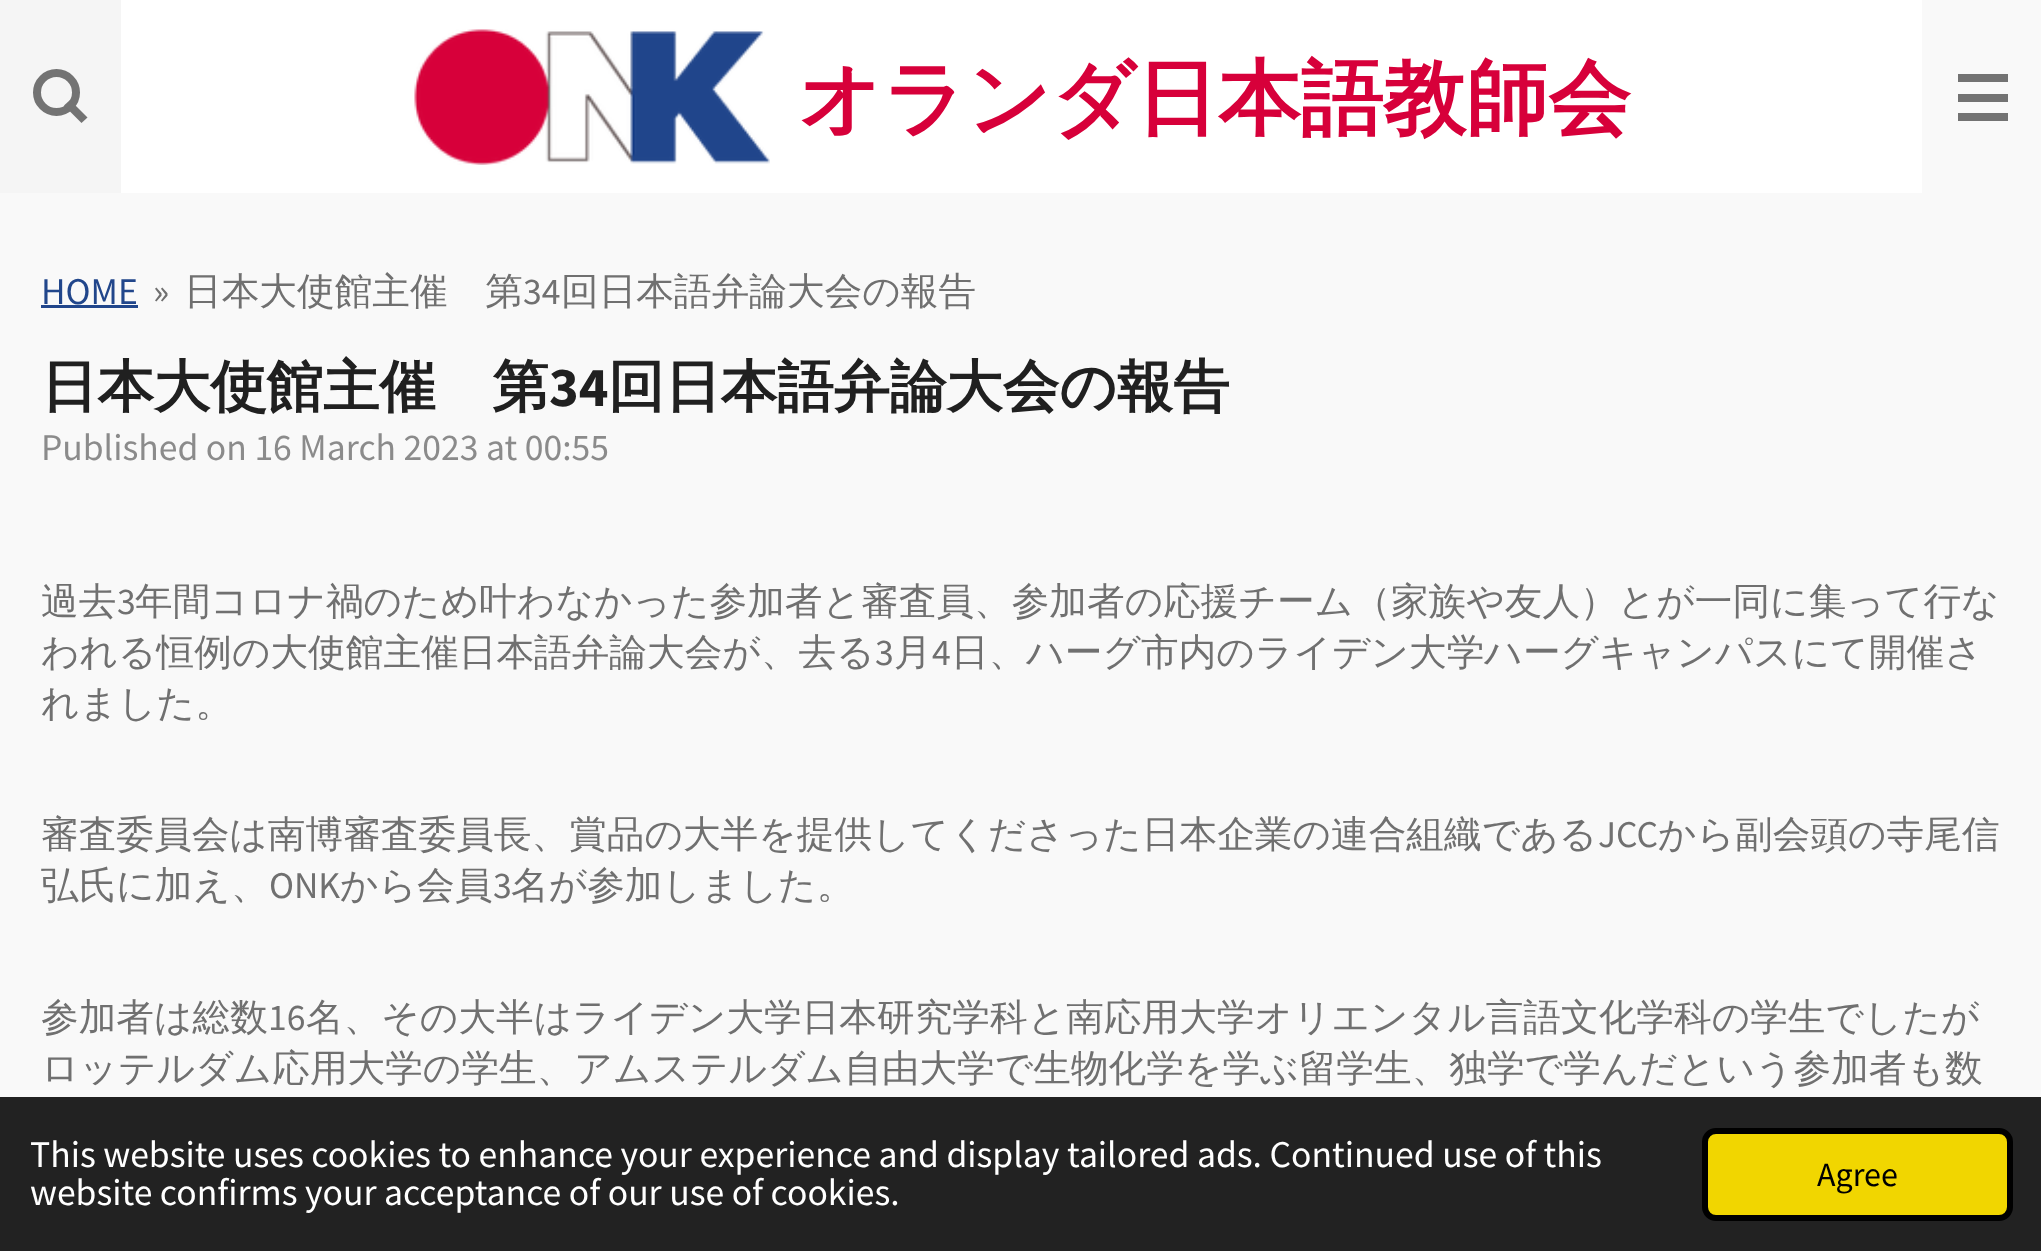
<svg xmlns="http://www.w3.org/2000/svg" width="2041" height="1251">
<style>
.a{font:bold 82.5px WenQuanYi Zen Hei;fill:#d7003a}
.b{font:37.67px Source Sans Pro;fill:#21468b}
.c{font:37.67px Source Sans Pro;fill:#707070}
.d{font:500 37.67px WenQuanYi Zen Hei;fill:#707070}
.e{font:bold 56.4px WenQuanYi Zen Hei;fill:#202020}
.f{font:bold 56.4px Source Sans Pro;fill:#202020}
.g{font:37.67px Source Sans Pro;fill:#8b8b8b}
.h{font:37.67px Source Sans Pro;fill:#fff}
.i{font:34px Source Sans Pro;fill:#000}
</style>
<rect width="100%" height="100%" fill="#f9f9f9"/>
<path fill="#f5f5f5" d="M0 0h121v193H0z"/>
<circle fill="none" stroke="#737373" stroke-width="8" cx="56.5" cy="92.5" r="19.5"/>
<path fill="#737373" d="M70 100l17.5 17.5l-6 5.5l-17.5-17.5z"/>
<path fill="#fff" d="M121 0h1801v193H121z"/>
<image href="1.png" x="414" y="29" width="356" height="136"/>
<path fill="#737373" d="M1958 94h50v8H1958z"/>
<path fill="#737373" d="M1958 74h50v8H1958z"/>
<path fill="#737373" d="M1958 113h50v8H1958z"/>
<path fill="#21468b" d="M41 305h97v3H41z"/>
<path fill="#222" d="M0 1097h2041v154H0z"/>
<rect fill="#f1d600" stroke="#000" stroke-width="6" x="1705" y="1131" width="305" height="87" rx="11"/>
<text class="a" x="798" y="127">オランダ日本語教師会</text>
<text class="b" x="41" y="304">HOME</text>
<text class="c" x="153" y="304">»</text>
<text class="d" x="184" y="304">日本大使館主催　第</text>
<text class="c" x="523" y="304">34</text>
<text class="d" x="561" y="304">回日本語弁論大会の報告</text>
<text class="e" x="41" y="406">日本大使館主催　第</text>
<text class="f" x="549" y="406">34</text>
<text class="e" x="608" y="406">回日本語弁論大会の報告</text>
<text class="g" x="41" y="460">Published on 16 March 2023 at 00:55</text>
<text class="d" x="41" y="614">過去</text>
<text class="c" x="117" y="614">3</text>
<text class="d" x="135" y="614">年間コロナ禍のため叶わなかった参加者と審査員、参加者の応援チーム（家族や友人）とが一同に集って行な</text>
<text class="d" x="41" y="665">われる恒例の大使館主催日本語弁論大会が、去る</text>
<text class="c" x="875" y="665">3</text>
<text class="d" x="894" y="665">月</text>
<text class="c" x="932" y="665">4</text>
<text class="d" x="951" y="665">日、ハーグ市内のライデン大学ハーグキャンパスにて開催さ</text>
<text class="d" x="41" y="716">れました。</text>
<text class="d" x="41" y="847">審査委員会は南博審査委員長、賞品の大半を提供してくださった日本企業の連合組織である</text>
<text class="c" x="1598" y="847">JCC</text>
<text class="d" x="1658" y="847">から副会頭の寺尾信</text>
<text class="d" x="41" y="898">弘氏に加え、</text>
<text class="c" x="269" y="898">ONK</text>
<text class="d" x="340" y="898">から会員</text>
<text class="c" x="493" y="898">3</text>
<text class="d" x="511" y="898">名が参加しました。</text>
<text class="d" x="41" y="1030">参加者は総数</text>
<text class="c" x="268" y="1030">16</text>
<text class="d" x="306" y="1030">名、その大半はライデン大学日本研究学科と南応用大学オリエンタル言語文化学科の学生でしたが</text>
<text class="d" x="41" y="1081">ロッテルダム応用大学の学生、アムステルダム自由大学で生物化学を学ぶ留学生、独学で学んだという参加者も数</text>
<text class="h" x="30" y="1167">This website uses cookies to enhance your experience and display tailored ads. Continued use of this</text>
<text class="h" x="30" y="1205">website confirms your acceptance of our use of cookies.</text>
<text class="i" x="1817" y="1186">Agree</text>
</svg>
